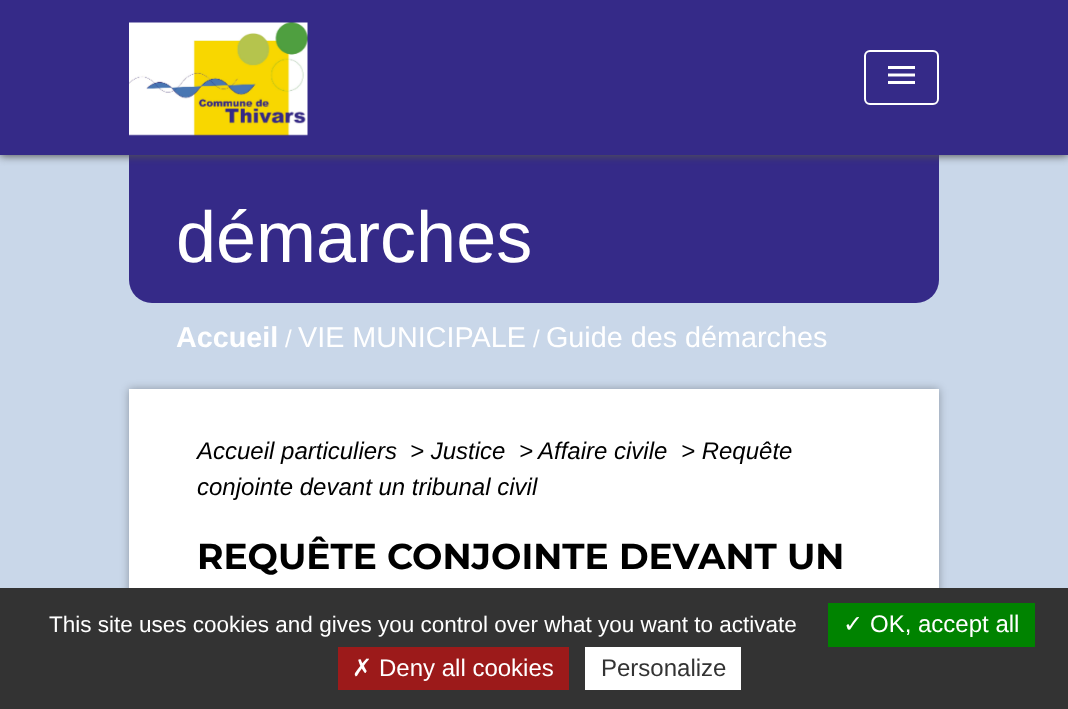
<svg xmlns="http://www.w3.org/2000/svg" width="1068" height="709">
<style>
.a{font:72px Liberation Sans;fill:#fff}
.b{font:bold 28.75px Liberation Sans;fill:#fff}
.c{font:24px Liberation Sans;fill:#fff}
.d{font:28.75px Liberation Sans;fill:#fff}
.e{font:italic 24px Liberation Sans;fill:#000}
.f{font:bold 36px Montserrat;fill:#000}
.g{font:22.5px Liberation Sans;fill:#fff}
.h{font:24px DejaVu Sans;fill:#fff}
.i{font:24px Liberation Sans;fill:#333}
</style>
<rect width="100%" height="100%" fill="#c9d7e9"/>
<rect fill="#352a88" x="129" y="90" width="810" height="213" rx="23"/>
<path fill="#535353" filter="blur(4.5px)" d="M0 2h1068v154H0z"/>
<path fill="#352a88" d="M0 0h1068v155H0z"/>
<image href="1.png" x="129" y="22" width="179" height="114"/>
<rect fill="none" stroke="#fff" stroke-width="2" x="865" y="51" width="73" height="53" rx="5"/>
<image href="2.png" x="888" y="66" width="27" height="18"/>
<path fill="#0000004d" filter="blur(4.5px)" d="M129 389h810v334H129z"/>
<path fill="#fff" d="M129 389h810v199H129z"/>
<path fill="#333" d="M0 588h1068v121H0z"/>
<path fill="#008300" d="M828 603h207v44H828z"/>
<path fill="#9c1a1a" d="M338 647h231v43H338z"/>
<path fill="#fff" d="M585 647h156v43H585z"/>
<text class="a" x="176" y="262">démarches</text>
<text class="b" x="176" y="347">Accueil</text>
<text class="c" x="285" y="347">/</text>
<text class="d" x="298" y="347">VIE MUNICIPALE</text>
<text class="c" x="533" y="347">/</text>
<text class="d" x="546" y="347">Guide des démarches</text>
<text class="e" x="197" y="459">Accueil particuliers</text>
<text class="e" x="410" y="459">&gt; Justice</text>
<text class="e" x="519" y="459">&gt;</text>
<text class="e" x="538" y="459">Affaire civile</text>
<text class="e" x="681" y="459">&gt; Requête</text>
<text class="e" x="197" y="495">conjointe devant un tribunal civil</text>
<text class="f" x="197" y="569">REQUÊTE CONJOINTE DEVANT UN</text>
<text class="g" x="49" y="632">This site uses cookies and gives you control over what you want to activate</text>
<text class="h" x="843" y="632">✓</text>
<text class="c" x="870" y="632">OK, accept all</text>
<text class="h" x="352" y="676">✗</text>
<text class="c" x="379" y="676">Deny all cookies</text>
<text class="i" x="601" y="676">Personalize</text>
</svg>
